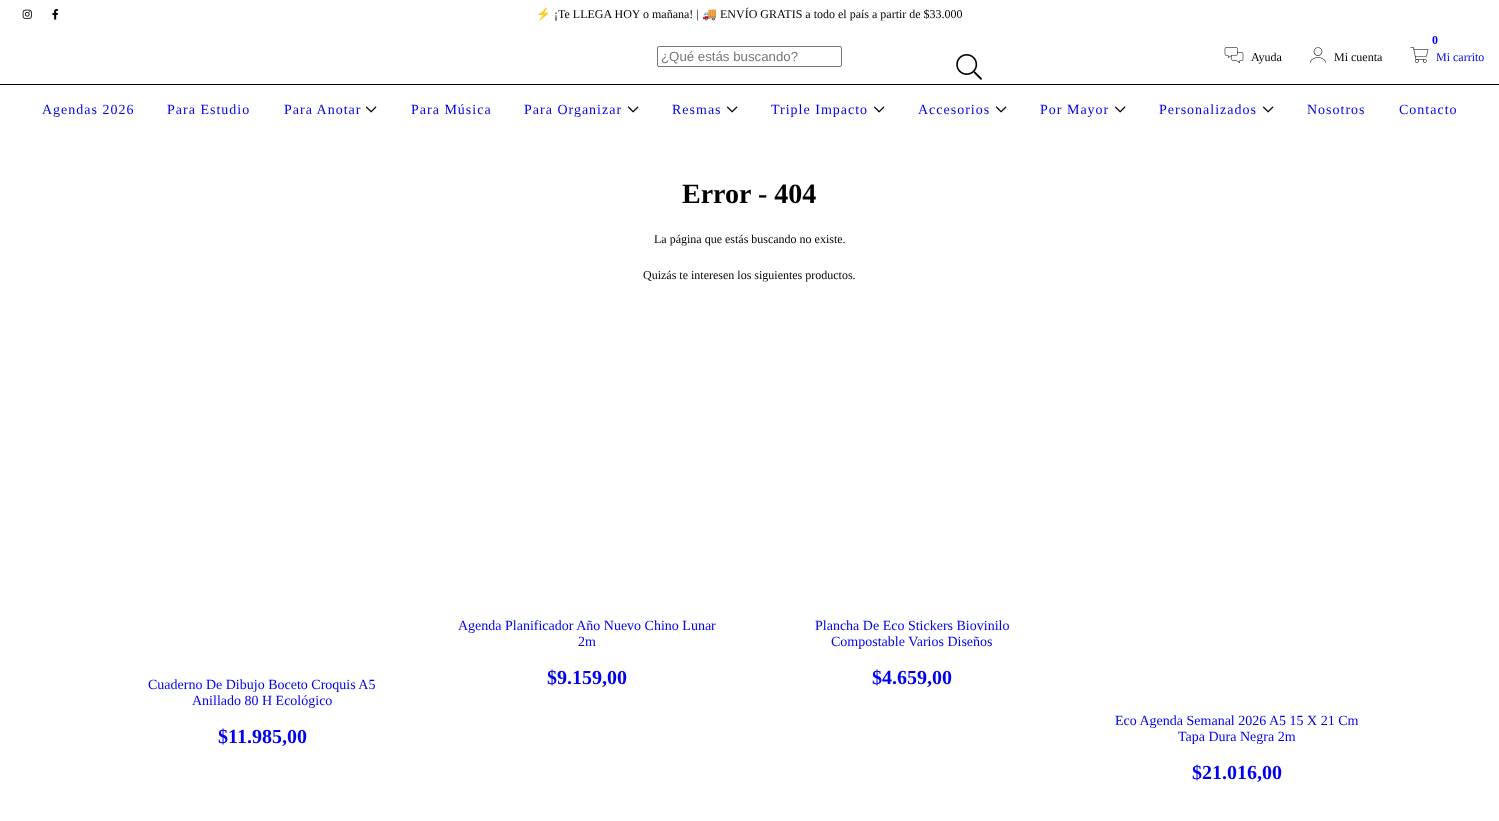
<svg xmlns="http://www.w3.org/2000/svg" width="1499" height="821">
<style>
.a{font:12px Noto Color Emoji;fill:#000}
.b{font:12px Liberation Serif;fill:#000}
.c{font:13.25px Liberation Sans;fill:#757575}
.d{font:bold 12px Liberation Serif;fill:#00e}
.e{font:12px Liberation Serif;fill:#00e}
.f{font:14px Liberation Serif;letter-spacing:1px;fill:#00e}
.g{font:bold 28px Liberation Serif;fill:#000}
.h{font:14px Liberation Serif;fill:#00e}
.i{font:bold 20px Liberation Serif;fill:#00e}
</style>
<rect width="100%" height="100%" fill="#fff"/>
<image href="1.png" x="22" y="9" width="10" height="10"/>
<image href="2.png" x="52" y="9" width="7" height="11"/>
<rect fill="none" stroke="#767676" x="657.5" y="46.5" width="184" height="20" rx="1.5"/>
<image href="3.png" x="956" y="54" width="26" height="26"/>
<image href="4.png" x="1224" y="47" width="20" height="16"/>
<image href="5.png" x="1310" y="47" width="16" height="16"/>
<image href="6.png" x="1410" y="47" width="19" height="16"/>
<path fill="#000" d="M0 84h1499v1H0z"/>
<image href="7.png" x="365" y="106" width="12" height="7"/>
<image href="7.png" x="627" y="106" width="12" height="7"/>
<image href="7.png" x="726" y="106" width="12" height="7"/>
<image href="7.png" x="873" y="106" width="12" height="7"/>
<image href="7.png" x="995" y="106" width="12" height="7"/>
<image href="7.png" x="1114" y="106" width="12" height="7"/>
<image href="7.png" x="1262" y="106" width="12" height="7"/>
<text class="a" x="536" y="18">⚡</text>
<text class="b" x="554" y="18">¡Te LLEGA HOY o mañana! |</text>
<text class="a" x="702" y="18">🚚</text>
<text class="b" x="720" y="18">ENVÍO GRATIS a todo el país a partir de $33.000</text>
<text class="c" x="661" y="61">¿Qué estás buscando?</text>
<text class="b" x="1251" y="61">Ayuda</text>
<text class="b" x="1334" y="61">Mi cuenta</text>
<text class="d" x="1432" y="44">0</text>
<text class="e" x="1436" y="61">Mi carrito</text>
<text class="f" x="42" y="114">Agendas 2026</text>
<text class="f" x="167" y="114">Para Estudio</text>
<text class="f" x="284" y="114">Para Anotar</text>
<text class="f" x="411" y="114">Para Música</text>
<text class="f" x="524" y="114">Para Organizar</text>
<text class="f" x="672" y="114">Resmas</text>
<text class="f" x="771" y="114">Triple Impacto</text>
<text class="f" x="918" y="114">Accesorios</text>
<text class="f" x="1040" y="114">Por Mayor</text>
<text class="f" x="1159" y="114">Personalizados</text>
<text class="f" x="1307" y="114">Nosotros</text>
<text class="f" x="1399" y="114">Contacto</text>
<text class="g" x="682" y="203">Error - 404</text>
<text class="b" x="654" y="243">La página que estás buscando no existe.</text>
<text class="b" x="643" y="279">Quizás te interesen los siguientes productos.</text>
<text class="h" x="458" y="630">Agenda Planificador Año Nuevo Chino Lunar</text>
<text class="h" x="578" y="646">2m</text>
<text class="i" x="547" y="684">$9.159,00</text>
<text class="h" x="815" y="630">Plancha De Eco Stickers Biovinilo</text>
<text class="h" x="831" y="646">Compostable Varios Diseños</text>
<text class="i" x="872" y="684">$4.659,00</text>
<text class="h" x="148" y="689">Cuaderno De Dibujo Boceto Croquis A5</text>
<text class="h" x="192" y="705">Anillado 80 H Ecológico</text>
<text class="i" x="218" y="743">$11.985,00</text>
<text class="h" x="1115" y="725">Eco Agenda Semanal 2026 A5 15 X 21 Cm</text>
<text class="h" x="1178" y="741">Tapa Dura Negra 2m</text>
<text class="i" x="1192" y="779">$21.016,00</text>
</svg>
